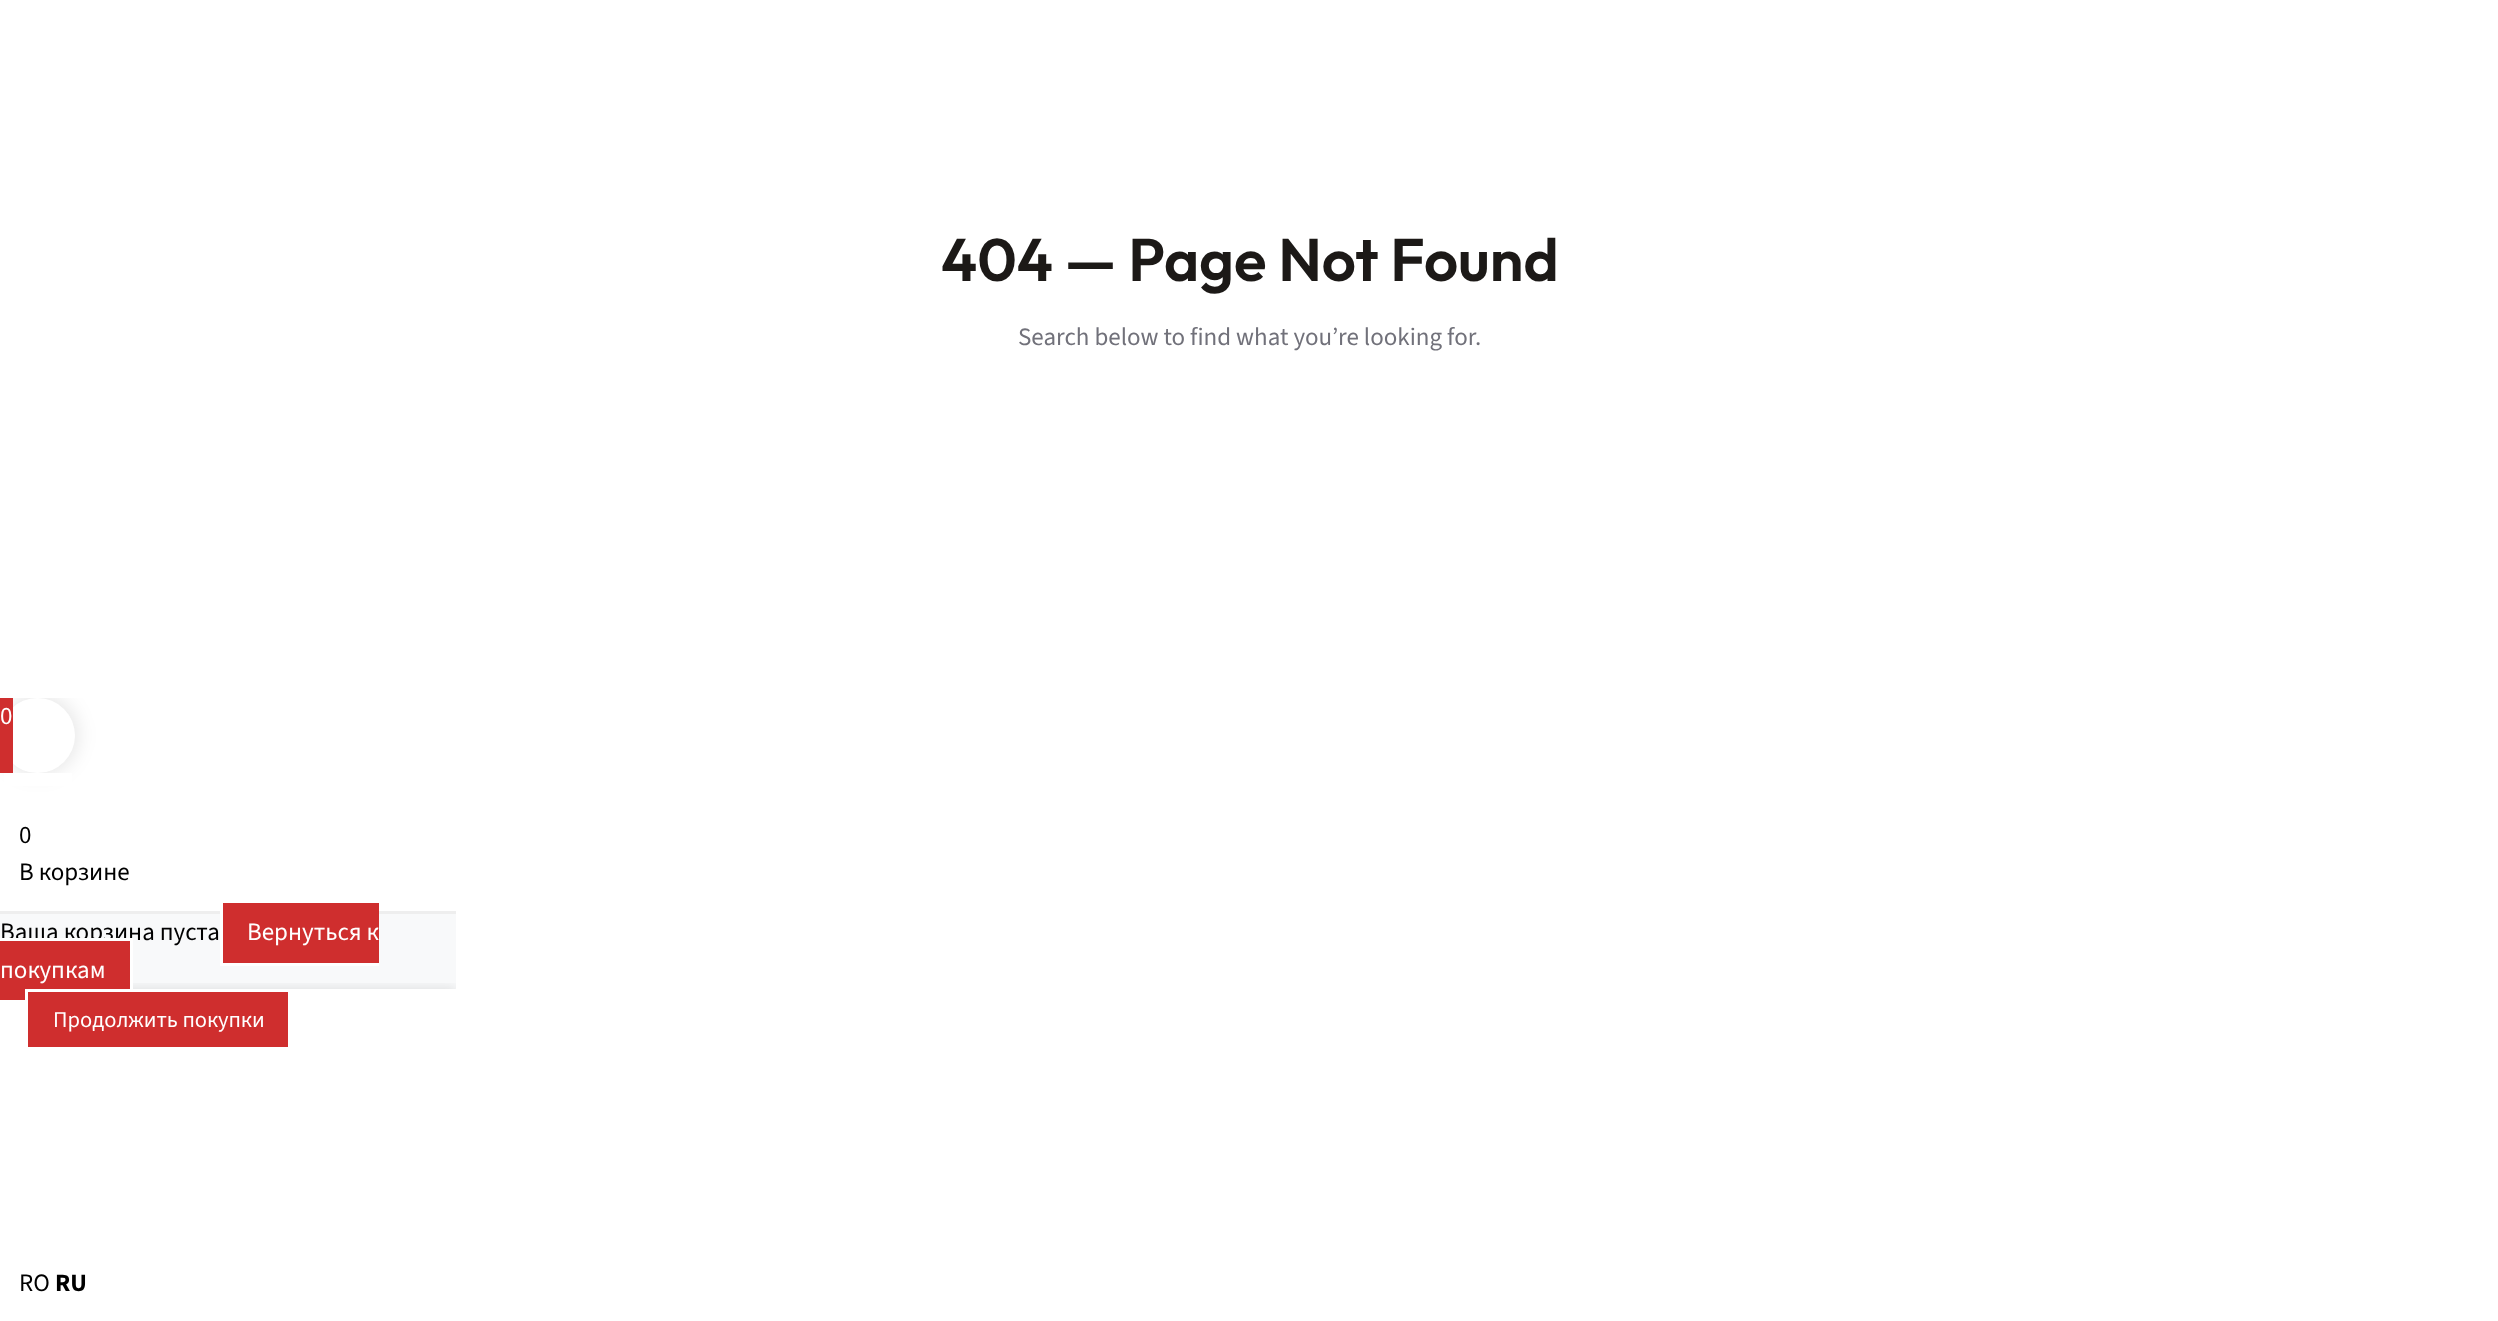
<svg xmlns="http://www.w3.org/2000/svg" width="2498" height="1321">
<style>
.a{font:600 60px Outfit;fill:#1c1917}
.b{font:25px 'Source Sans 3';fill:#71717a}
.c{font:25px 'Source Sans 3';fill:#fff}
.d{font:25px 'Source Sans 3';fill:#000}
.e{font:22.5px 'Source Sans 3';fill:#fff}
.f{font:bold 25px 'Source Sans 3';fill:#000}
</style>
<defs>
<clipPath id="clip1"><path d="M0 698h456v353H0z"/></clipPath>
<clipPath id="clip2"><path d="M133 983h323v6H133z"/></clipPath>
</defs>
<rect width="100%" height="100%" fill="#fff"/>
<g clip-path="url(#clip1)">
<rect fill="#0000001a" filter="blur(9.5px)" x="-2" y="695" width="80" height="80" rx="40"/>
</g>
<circle fill="#fff" cx="37.5" cy="735.5" r="37.5"/>
<path fill="#cf2e2e" d="M0 698h13v75H0z"/>
<path fill="#fff" d="M4 773h68v13H4z"/>
<path fill="#eee" d="M0 911h456v3H0z"/>
<path fill="#f8f9fa" d="M0 914h456v75H0z"/>
<path fill="#cf2e2e" d="M223 903h156v60H223z"/>
<path fill="#fff" d="M220 963h159v3H220z"/>
<path fill="#fff" d="M220 911h3v54H220z"/>
<g clip-path="url(#clip1)">
<g clip-path="url(#clip2)">
<path fill="#0000001a" filter="blur(6px)" d="M0 988h456v62H0z"/>
</g>
</g>
<text class="a" x="941" y="281">404 — Page Not Found</text>
<text class="b" x="1018" y="345">Search below to find what you’re looking for.</text>
<text class="c" x="0" y="724">0</text>
<text class="d" x="19" y="843">0</text>
<text class="d" x="19" y="880">В корзине</text>
<text class="d" x="0" y="940">Ваша корзина пуста</text>
<text class="c" x="247" y="940">Вернуться к</text>
<path fill="#cf2e2e" d="M0 941h130v59H0z"/>
<text class="c" x="0" y="978">покупкам</text>
<path fill="#fff" d="M0 938h133v3H0z"/>
<path fill="#fff" d="M130 938h3v51H130z"/>
<path fill="#cf2e2e" stroke="#fff" stroke-width="3" d="M26.5 990.5h263v58H26.5z"/>
<text class="e" x="53" y="1027">Продолжить покупки</text>
<text class="d" x="19" y="1291">RO</text>
<text class="f" x="55" y="1291">RU</text>
</svg>
